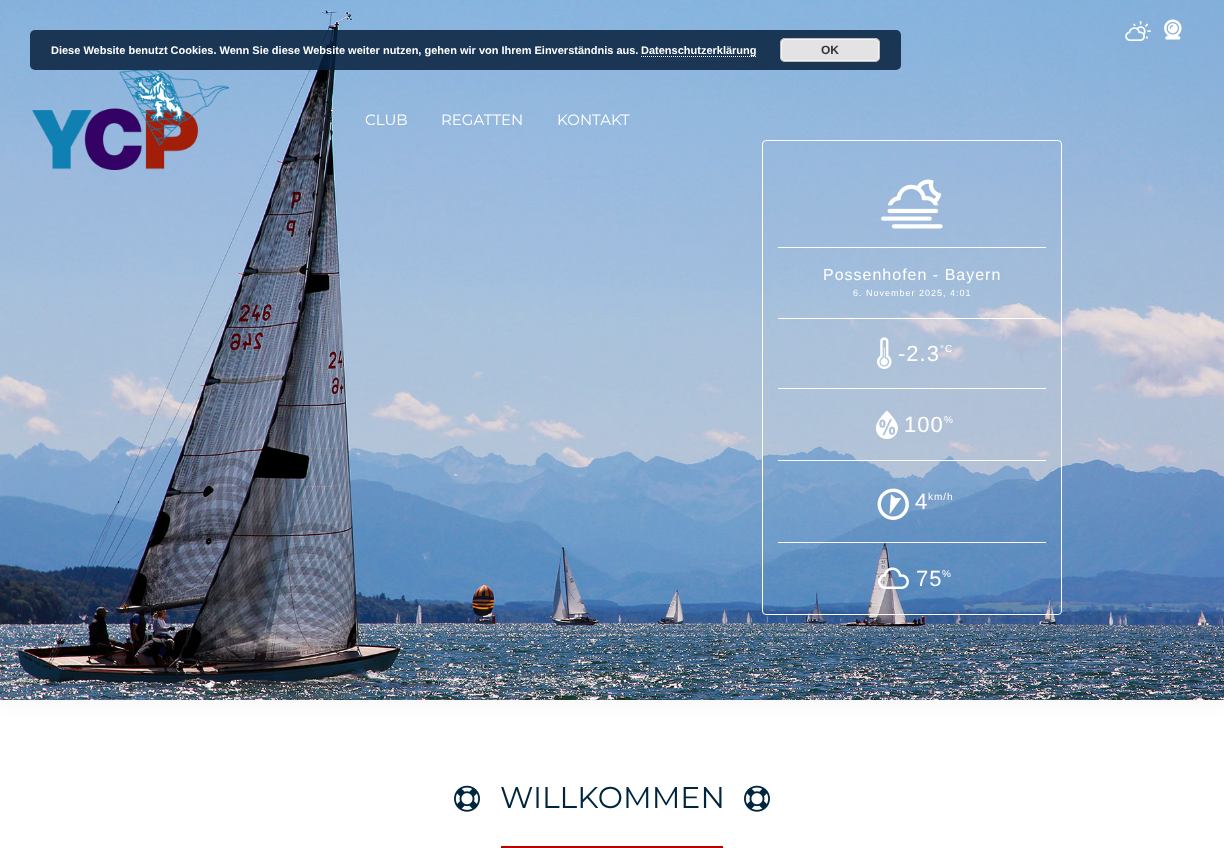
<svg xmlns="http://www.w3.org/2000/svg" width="1224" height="848">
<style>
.a{font:bold 11px Liberation Sans;fill:#fff}
.b{font:bold 12px Liberation Sans;fill:#333}
.c{font:100 15px Montserrat;fill:#fff}
.d{font:16px Liberation Sans;letter-spacing:1px;fill:#fff}
.e{font:9px Liberation Sans;letter-spacing:1px;fill:#fff}
.f{font:22px Liberation Sans;letter-spacing:1px;fill:#fff}
.g{font:10px Liberation Sans;letter-spacing:1px;fill:#fff}
.h{font:100 30px Montserrat;fill:#00263f}
</style>
<rect width="100%" height="100%" fill="#fff"/>
<path fill="#0000000d" filter="blur(10px)" d="M0 0h1224v700H0z"/>
<image href="1.png" x="0" y="0" width="1224" height="700"/>
<rect fill="#07203dd9" x="30" y="30" width="871" height="40" rx="5"/>
<path fill="none" stroke="#fff" stroke-dasharray="1 1" d="M641 56.5h116"/>
<rect fill="#e3e3e3" x="780" y="38" width="100" height="24" rx="5"/>
<rect fill="none" stroke="#f6f6f6" x="781.5" y="39.5" width="97" height="21" rx="3.5"/>
<rect fill="none" stroke="#bbb" x="780.5" y="38.5" width="99" height="23" rx="4.5"/>
<image href="2.png" x="1125" y="21" width="26" height="20"/>
<image href="3.png" x="1164" y="19" width="18" height="21"/>
<image href="4.png" x="32" y="70" width="197" height="100"/>
<rect fill="none" stroke="#fff" x="762.5" y="140.5" width="299" height="474" rx="3.5"/>
<image href="5.png" x="881" y="179" width="62" height="50"/>
<path fill="#fff" d="M778 247h268v1H778z"/>
<path fill="#fff" d="M778 318h268v1H778z"/>
<image href="6.png" x="877" y="337" width="15" height="32"/>
<path fill="#fff" d="M778 388h268v1H778z"/>
<image href="7.png" x="875" y="410" width="23" height="29"/>
<path fill="#fff" d="M778 460h268v1H778z"/>
<image href="8.png" x="877" y="488" width="32" height="32"/>
<path fill="#fff" d="M778 542h268v1H778z"/>
<image href="9.png" x="878" y="567" width="31" height="22"/>
<image href="10.png" x="454" y="785" width="26" height="27"/>
<image href="10.png" x="744" y="785" width="26" height="27"/>
<path fill="#be0002" d="M501 846h222v2H501z"/>
<text class="a" x="51" y="54">Diese Website benutzt Cookies. Wenn Sie diese Website weiter nutzen, gehen wir von Ihrem Einverständnis aus.</text>
<text class="a" x="641" y="54">Datenschutzerklärung</text>
<text class="b" x="821" y="54">OK</text>
<text class="c" x="365" y="125">CLUB</text>
<text class="c" x="441" y="125">REGATTEN</text>
<text class="c" x="557" y="125">KONTAKT</text>
<text class="d" x="823" y="280">Possenhofen - Bayern</text>
<text class="e" x="853" y="296">6. November 2025, 4:01</text>
<text class="f" x="898" y="361">-2.3</text>
<text class="g" x="940" y="352">°C</text>
<text class="f" x="904" y="432">100</text>
<text class="g" x="944" y="423">%</text>
<text class="f" x="915" y="509">4</text>
<text class="g" x="928" y="500">km/h</text>
<text class="f" x="916" y="586">75</text>
<text class="g" x="942" y="577">%</text>
<text class="h" x="500" y="808">WILLKOMMEN</text>
</svg>
